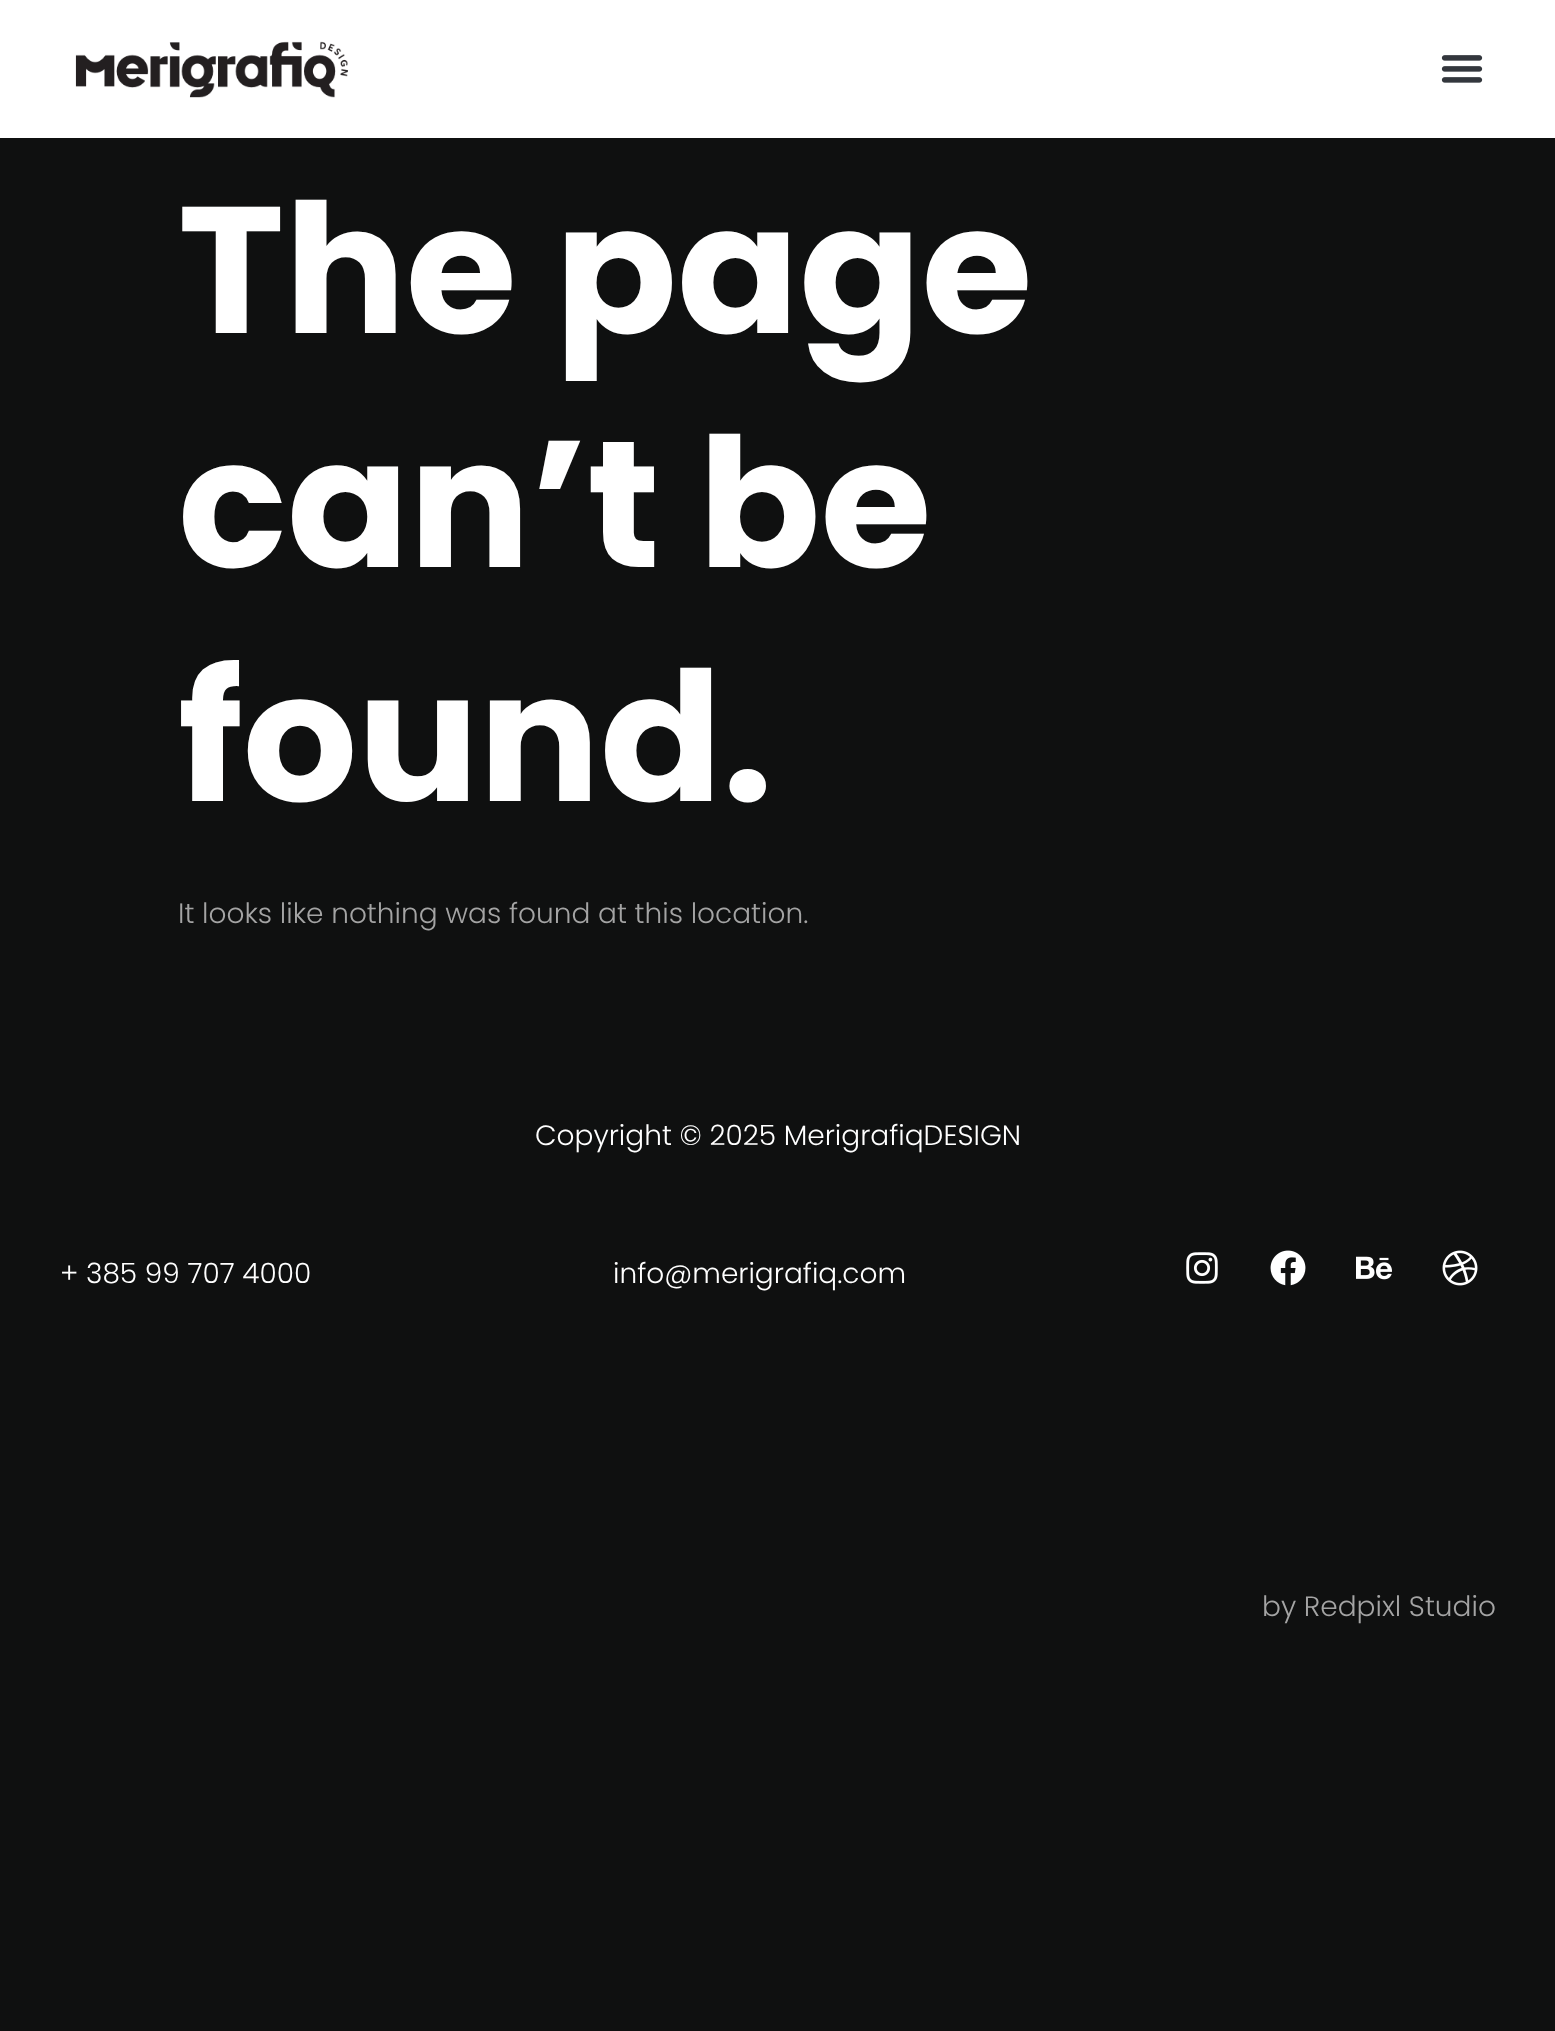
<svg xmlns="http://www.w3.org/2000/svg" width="1555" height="2031">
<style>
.a{font:bold 180px Poppins;fill:#fff}
.b{font:300 28px Poppins;fill:#a4a4a4}
.c{font:300 28px Poppins;fill:#fff}
</style>
<rect width="100%" height="100%" fill="#0f1010"/>
<path fill="#fff" d="M0 0h1555v138H0z"/>
<image href="1.png" x="75" y="41" width="274" height="57"/>
<image href="2.png" x="1441" y="55" width="42" height="28"/>
<image href="3.png" x="1186" y="1252" width="32" height="32"/>
<image href="4.png" x="1270" y="1250" width="36" height="36"/>
<image href="5.png" x="1356" y="1256" width="36" height="24"/>
<image href="6.png" x="1442" y="1250" width="36" height="36"/>
<text class="a" x="178" y="333">The page</text>
<text class="a" x="178" y="567">can’t be</text>
<text class="a" x="178" y="801">found.</text>
<text class="b" x="178" y="923">It looks like nothing was found at this location.</text>
<text class="c" x="535" y="1145">Copyright © 2025 MerigrafiqDESIGN</text>
<text class="c" x="60" y="1283">+ 385 99 707 4000</text>
<text class="c" x="613" y="1283">info@merigrafiq.com</text>
<text class="b" x="1262" y="1616">by Redpixl Studio</text>
</svg>
